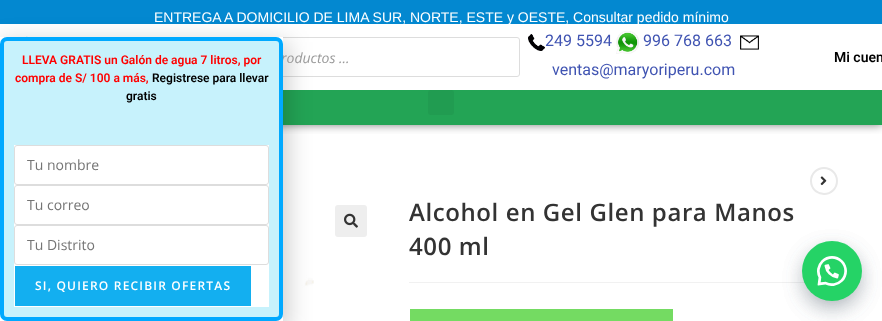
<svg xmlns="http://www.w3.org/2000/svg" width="882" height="321">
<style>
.a{font:14px Liberation Sans;fill:#fff}
.b{font:16px Roboto;fill:#4054b2}
.c{font:italic 14px Open Sans;fill:#999}
.d{font:600 12px Open Sans;letter-spacing:1.2px;fill:#fff}
.e{font:14px Open Sans;fill:#757575}
.f{font:600 12px Roboto;fill:#000}
.g{font:600 12px Roboto;fill:#f00}
.h{font:600 14px Roboto;fill:#000}
.i{font:600 24px Open Sans;letter-spacing:0.6px;fill:#333}
</style>
<defs>
<clipPath id="clip1"><path d="M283 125h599v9H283z"/></clipPath>
</defs>
<rect width="100%" height="100%" fill="#fff"/>
<g clip-path="url(#clip1)">
<path fill="#00000080" filter="blur(5px)" d="M0 -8h882v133H0z"/>
</g>
<path fill="#0388d0" d="M0 0h882v24H0z"/>
<image href="1.png" x="26" y="36" width="2" height="1"/>
<rect fill="none" stroke="#ddd" x="186.5" y="37.5" width="333" height="39" rx="2.5"/>
<path fill="#23a455" d="M283 90h599v35H283z"/>
<image href="6.png" x="283" y="202" width="31" height="119"/>
<path fill="#00000033" filter="blur(11.5px)" d="M-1 42h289v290H-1z"/>
<image href="2.png" x="528" y="34" width="17" height="17"/>
<image href="3.png" x="616" y="31" width="23" height="23"/>
<image href="4.png" x="740" y="35" width="19" height="15"/>
<rect fill="#219c51" x="428" y="90" width="26" height="25" rx="3"/>
<circle fill="none" stroke="#e9e9e9" stroke-width="2" cx="824" cy="181" r="13"/>
<image href="5.png" x="820" y="176" width="7" height="10"/>
<rect fill="#eee" x="335" y="205" width="32" height="32" rx="3"/>
<image href="7.png" x="344" y="213" width="14" height="15"/>
<path fill="#f1f1f1" d="M409 282h396v1H409z"/>
<path fill="#74db62" d="M410 309h263v12H410z"/>
<rect fill="#2d3e4f4d" filter="blur(12.5px)" x="807" y="254" width="50" height="50" rx="25"/>
<rect fill="#2d3e4f4d" filter="blur(12.5px)" x="807" y="254" width="50" height="50" rx="25"/>
<circle fill="#25d366" cx="832" cy="271" r="30"/>
<image href="8.png" x="817" y="256" width="30" height="30"/>
<text class="a" x="154" y="22">ENTREGA A DOMICILIO DE LIMA SUR, NORTE, ESTE y OESTE, Consultar pedido mínimo</text>
<text class="b" x="545" y="46">249 5594</text>
<text class="b" x="643" y="46">996 768 663</text>
<text class="b" x="552" y="75">ventas@maryoriperu.com</text>
<text class="c" x="281" y="63">roductos ...</text>
<path fill="#fff" d="M0 37h283v284H0z"/>
<rect fill="#c7f2fc" stroke="#00a9ff" stroke-width="4" x="2" y="39" width="279" height="280" rx="5"/>
<path fill="#fff" d="M14 145h255v162H14z"/>
<path fill="#13aff0" d="M15 266h236v40H15z"/>
<text class="d" x="35" y="290">SI, QUIERO RECIBIR OFERTAS</text>
<rect fill="none" stroke="#ddd" x="14.5" y="225.5" width="254" height="39" rx="2.5"/>
<text class="e" x="27" y="250">Tu Distrito</text>
<rect fill="none" stroke="#ddd" x="14.5" y="185.5" width="254" height="39" rx="2.5"/>
<text class="e" x="27" y="210">Tu correo</text>
<rect fill="none" stroke="#ddd" x="14.5" y="145.5" width="254" height="39" rx="2.5"/>
<text class="e" x="27" y="170">Tu nombre</text>
<text class="f" x="126" y="100">gratis</text>
<text class="f" x="152" y="82">Registrese para llevar</text>
<text class="g" x="15" y="82">compra de S/ 100 a más,</text>
<text class="g" x="22" y="64">LLEVA GRATIS un Galón de agua 7 litros, por</text>
<text class="h" x="834" y="62">Mi cuen</text>
<text class="i" x="409" y="221">Alcohol en Gel Glen para Manos</text>
<text class="i" x="409" y="255">400 ml</text>
</svg>
